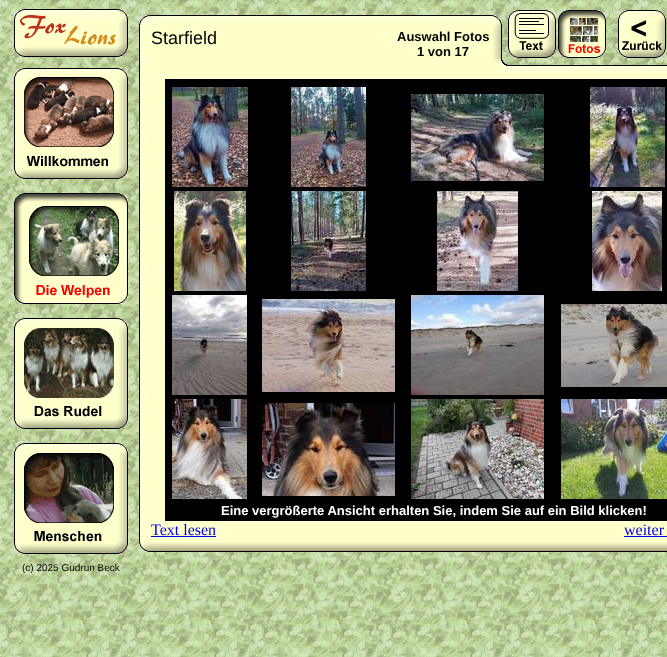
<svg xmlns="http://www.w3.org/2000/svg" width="667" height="657">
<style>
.a{font:18px Liberation Sans;fill:#000}
.b{font:bold 13px Liberation Sans;fill:#000}
.c{font:bold 13px Liberation Sans;fill:#fff}
.d{font:16px Liberation Serif;fill:#00e}
.e{font:10px Liberation Sans;fill:#000}
</style>
<rect width="100%" height="100%" fill="#fff"/>
<image href="1.png" x="0" y="0" width="667" height="657"/>
<image href="2.png" x="139" y="15" width="12" height="13"/>
<image href="3.png" x="151" y="15" width="338" height="13"/>
<image href="4.png" x="489" y="15" width="13" height="13"/>
<image href="5.png" x="508" y="10" width="48" height="48"/>
<image href="6.png" x="558" y="10" width="48" height="48"/>
<image href="7.png" x="618" y="10" width="48" height="48"/>
<image href="8.png" x="139" y="28" width="12" height="31"/>
<path fill="#ffc" d="M151 28h338v51H151z"/>
<image href="9.png" x="489" y="28" width="13" height="31"/>
<image href="10.png" x="139" y="59" width="12" height="19"/>
<image href="11.png" x="489" y="59" width="18" height="19"/>
<image href="12.png" x="507" y="65" width="160" height="13"/>
<image href="13.png" x="139" y="78" width="12" height="1"/>
<path fill="#ffc" d="M489 78h178v1H489z"/>
<image href="14.png" x="139" y="79" width="12" height="460"/>
<path fill="#ffc" d="M151 79h516v460H151z"/>
<path fill="#000" d="M165 79h502v442H165z"/>
<image href="15.png" x="172" y="87" width="76" height="100"/>
<image href="16.png" x="291" y="87" width="75" height="100"/>
<image href="17.png" x="411" y="94" width="133" height="87"/>
<image href="18.png" x="590" y="87" width="75" height="100"/>
<image href="19.png" x="174" y="191" width="72" height="100"/>
<image href="20.png" x="291" y="191" width="75" height="100"/>
<image href="21.png" x="437" y="191" width="81" height="100"/>
<image href="22.png" x="592" y="191" width="70" height="100"/>
<image href="23.png" x="172" y="295" width="75" height="100"/>
<image href="24.png" x="262" y="299" width="133" height="93"/>
<image href="25.png" x="411" y="295" width="133" height="100"/>
<image href="26.png" x="561" y="304" width="106" height="83"/>
<image href="27.png" x="172" y="399" width="75" height="100"/>
<image href="28.png" x="262" y="403" width="133" height="93"/>
<image href="29.png" x="411" y="399" width="133" height="100"/>
<image href="30.png" x="561" y="399" width="106" height="100"/>
<path fill="#00e" d="M151 536h65v1H151z"/>
<path fill="#00e" d="M624 536h43v1H624z"/>
<image href="31.png" x="139" y="539" width="12" height="13"/>
<image href="32.png" x="151" y="539" width="516" height="13"/>
<image href="33.png" x="14" y="9" width="114" height="48"/>
<image href="34.png" x="14" y="68" width="114" height="111"/>
<image href="35.png" x="14" y="193" width="114" height="111"/>
<image href="36.png" x="14" y="318" width="114" height="111"/>
<image href="37.png" x="14" y="443" width="114" height="111"/>
<text class="a" x="151" y="44">Starfield</text>
<text class="b" x="397" y="41">Auswahl Fotos</text>
<text class="b" x="417" y="56">1 von 17</text>
<text class="c" x="221" y="515">Eine vergrößerte Ansicht erhalten Sie, indem Sie auf ein Bild klicken!</text>
<text class="d" x="151" y="535">Text lesen</text>
<text class="d" x="624" y="535">weiter</text>
<text class="e" x="22" y="571">(c) 2025 Gudrun Beck</text>
</svg>
